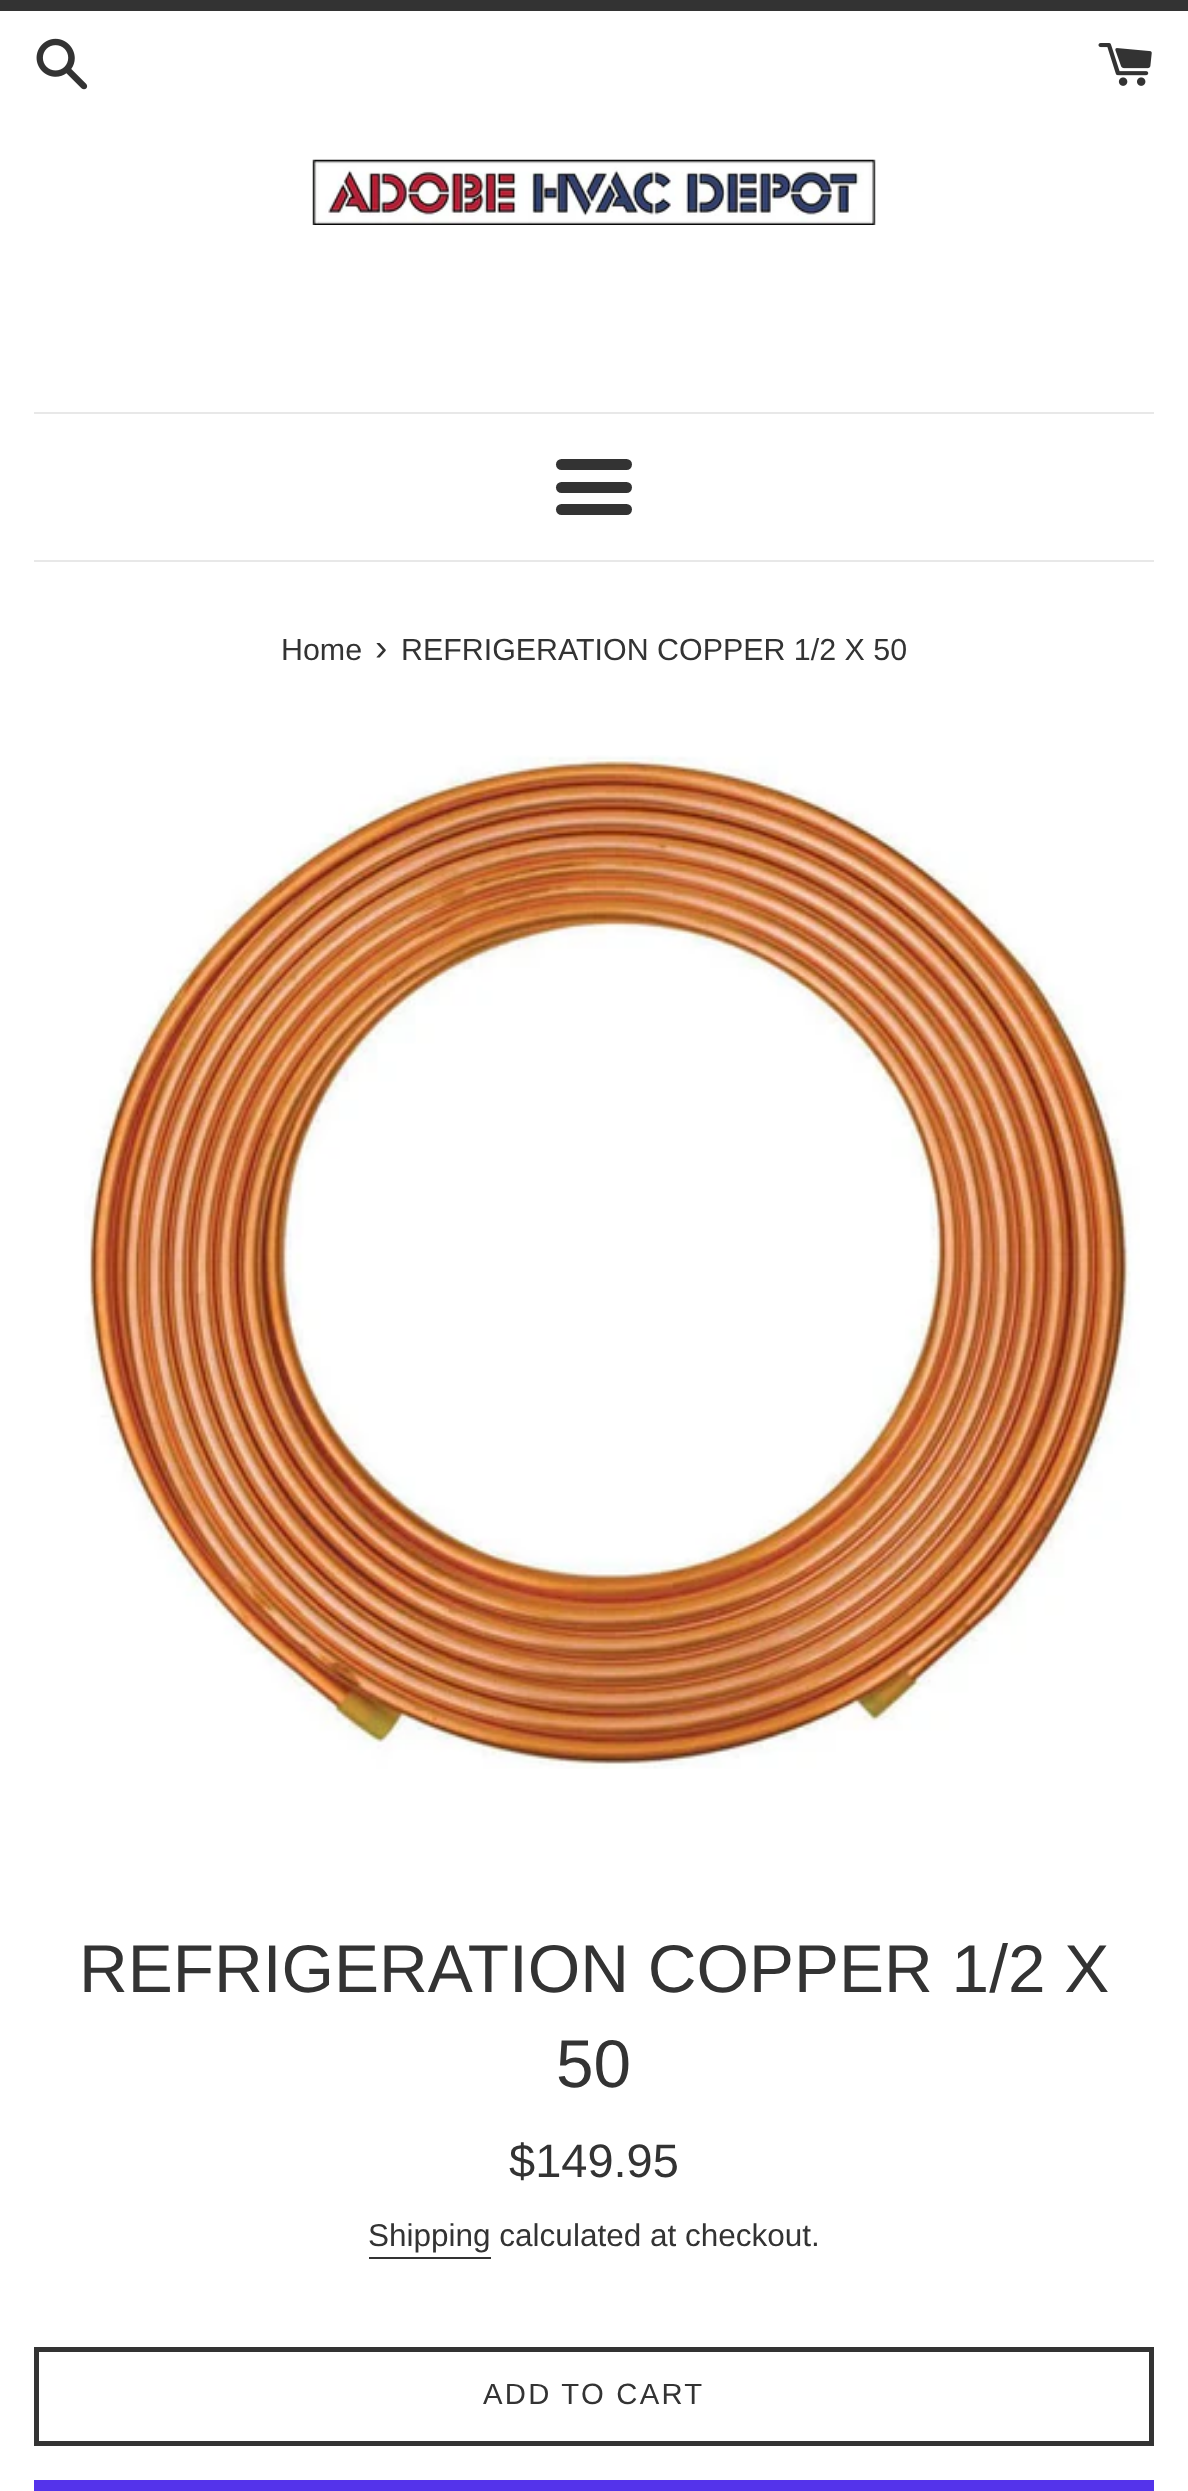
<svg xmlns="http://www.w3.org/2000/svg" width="1188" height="2491">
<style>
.a{font:30.4px Liberation Sans;fill:#333}
.b{font:37px Liberation Sans;fill:#333}
.c{font:67.5px Arimo;fill:#333}
.d{font:47px Liberation Sans;fill:#333}
.e{font:31.5px Liberation Sans;fill:#333}
.f{font:29.25px Liberation Sans;letter-spacing:2.25px;fill:#333}
</style>
<rect width="100%" height="100%" fill="#fff"/>
<path fill="#333" d="M0 0h1188v11H0z"/>
<image href="1.png" x="36" y="38" width="52" height="52"/>
<image href="2.png" x="1098" y="43" width="54" height="43"/>
<image href="3.png" x="312" y="159" width="564" height="66"/>
<path fill="#e8e8e8" d="M34 412h1120v2H34z"/>
<rect fill="#333" x="556" y="459" width="76" height="11" rx="5.5"/>
<rect fill="#333" x="556" y="482" width="76" height="11" rx="5.5"/>
<rect fill="#333" x="556" y="504" width="76" height="11" rx="5.5"/>
<path fill="#e8e8e8" d="M34 560h1120v2H34z"/>
<image href="4.png" x="84" y="755" width="1056" height="1014"/>
<path fill="#333" d="M369 2257h122v2H369z"/>
<path fill="none" stroke="#333" stroke-width="5" d="M36.5 2349.5h1115v94H36.5z"/>
<path fill="#5433eb" d="M34 2480h1120v11H34z"/>
<text class="a" x="281" y="660">Home</text>
<text class="b" x="375" y="660">›</text>
<text class="a" x="401" y="660">REFRIGERATION COPPER 1/2 X 50</text>
<text class="c" x="79" y="1992">REFRIGERATION COPPER 1/2 X</text>
<text class="c" x="556" y="2087">50</text>
<text class="d" x="509" y="2177">$149.95</text>
<text class="e" x="368" y="2246">Shipping calculated at checkout.</text>
<text class="f" x="483" y="2404">ADD TO CART</text>
</svg>
